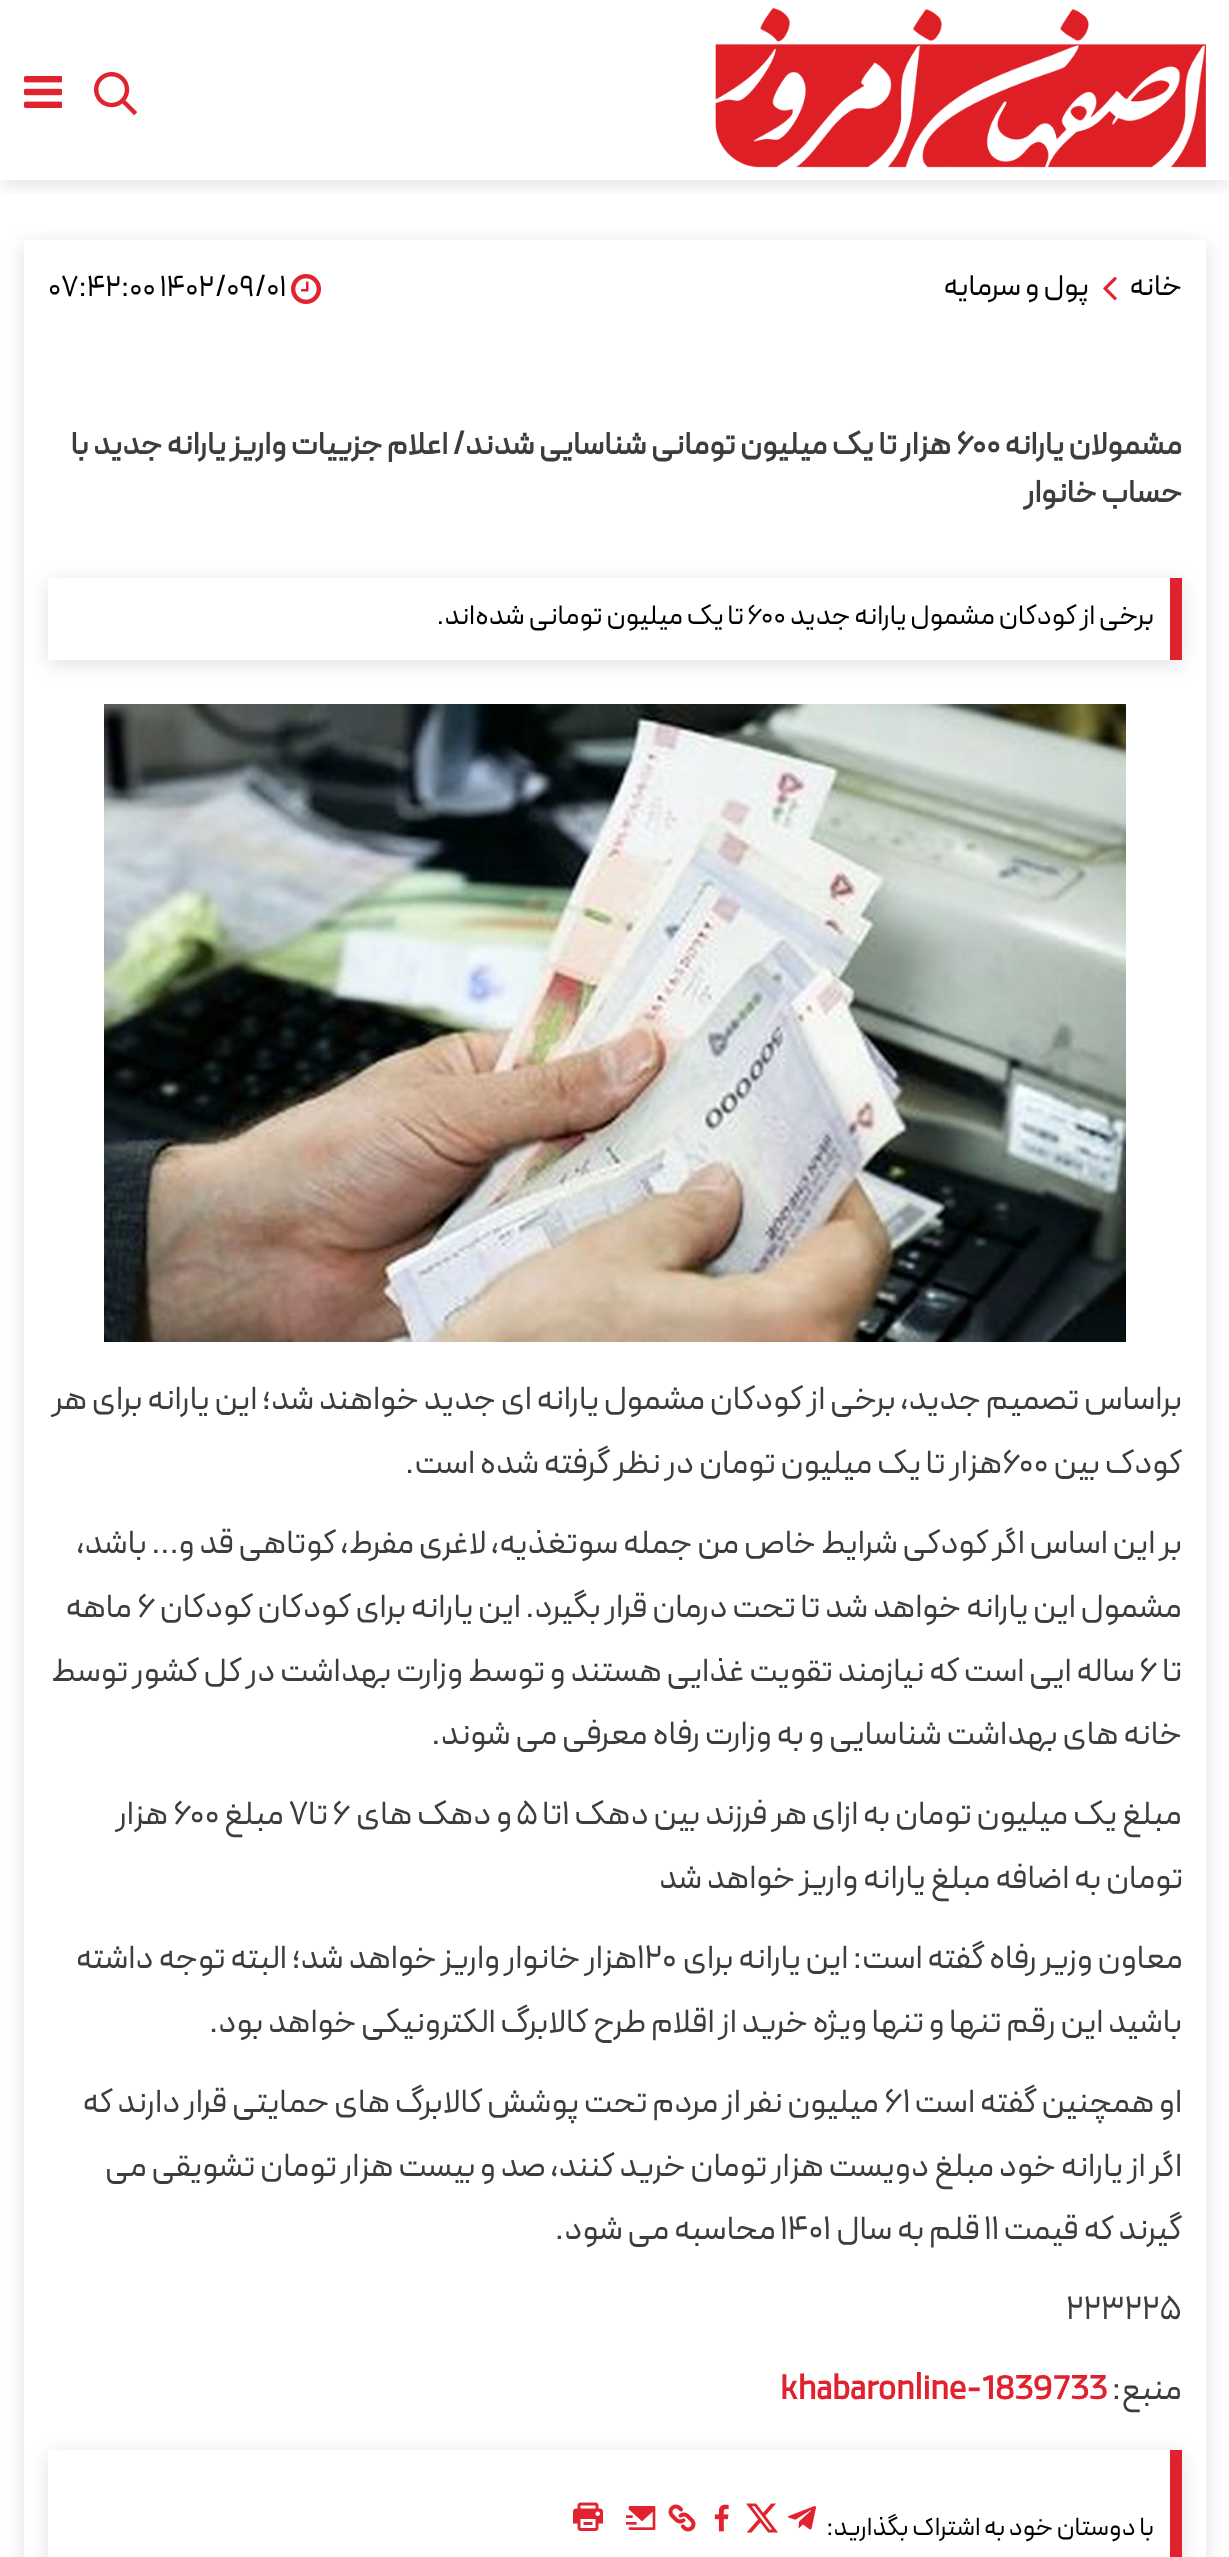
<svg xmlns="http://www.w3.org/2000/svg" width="1229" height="2557">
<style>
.a{font:30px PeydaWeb;direction:rtl;fill:#000}
.b{font:30px PeydaWeb;fill:#000}
.c{font:bold 32px PeydaWeb;direction:rtl;fill:#403c3c}
.d{font:bold 32px PeydaWeb;fill:#403c3c}
.e{font:28px PeydaWeb;direction:rtl;fill:#000}
.f{font:28px PeydaWeb;fill:#000}
.g{font:33.6px PeydaWeb;direction:rtl;fill:#403c3c}
.h{font:33.6px PeydaWeb;fill:#403c3c}
.i{font:bold 33.6px PeydaWeb;fill:#e0222e}
.j{font:26px PeydaWeb;direction:rtl;fill:#000}
</style>
<defs>
<clipPath id="clip1"><path d="M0 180h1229v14H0z"/></clipPath>
<clipPath id="clip2"><path d="M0 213h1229v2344h-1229zm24 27h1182v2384h-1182z" clip-rule="evenodd"/></clipPath>
<clipPath id="clip3"><path d="M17 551h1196v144h-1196zm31 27h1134v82h-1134z" clip-rule="evenodd"/></clipPath>
<clipPath id="clip4"><path d="M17 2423h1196v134h-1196zm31 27h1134v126h-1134z" clip-rule="evenodd"/></clipPath>
</defs>
<rect width="100%" height="100%" fill="#fff"/>
<g clip-path="url(#clip1)">
<path fill="#0000001f" filter="blur(10px)" d="M0 4h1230v180H0z"/>
</g>
<image href="1.png" x="715" y="8" width="491" height="160"/>
<image href="2.png" x="94" y="72" width="44" height="44"/>
<image href="3.png" x="24" y="76" width="38" height="32"/>
<g clip-path="url(#clip2)">
<path fill="#0000001f" filter="blur(10px)" d="M24 244h1182v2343H24z"/>
</g>
<image href="4.png" x="1103" y="276" width="14" height="25"/>
<image href="5.png" x="291" y="274" width="30" height="30"/>
<g clip-path="url(#clip3)">
<path fill="#0000001f" filter="blur(10px)" d="M48 582h1134v82H48z"/>
</g>
<path fill="#e0222e" d="M1170 578h12v82H1170z"/>
<image href="6.png" x="104" y="704" width="1022" height="638"/>
<g clip-path="url(#clip4)">
<path fill="#0000001f" filter="blur(10px)" d="M48 2454h1134v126H48z"/>
</g>
<path fill="#e0222e" d="M1170 2450h12v107H1170z"/>
<image href="7.png" x="788" y="2506" width="28" height="24"/>
<image href="8.png" x="746" y="2503" width="32" height="30"/>
<image href="9.png" x="714" y="2504" width="15" height="28"/>
<image href="10.png" x="668" y="2504" width="28" height="28"/>
<image href="11.png" x="626" y="2506" width="30" height="24"/>
<image href="12.png" x="573" y="2502" width="30" height="29"/>
<text class="a" x="1182" y="295">خانه</text>
<text class="a" x="1089" y="295">پول و سرمایه</text>
<text class="b" x="48" y="296">۰۷:۴۲:۰۰ ۱۴۰۲/۰۹/۰۱</text>
<text class="c" x="1182" y="454">مشمولان یارانه</text>
<text class="d" x="956" y="454">۶۰۰</text>
<text class="c" x="951" y="454">هزار تا یک میلیون تومانی شناسایی شدند/</text>
<text class="c" x="448" y="454">اعلام جزییات واریز یارانه جدید با</text>
<text class="c" x="1182" y="502">حساب خانوار</text>
<text class="e" x="1154" y="624">برخی از کودکان مشمول یارانه جدید</text>
<text class="f" x="747" y="624">۶۰۰</text>
<text class="e" x="744" y="624">تا یک میلیون تومانی شده‌اند.</text>
<text class="g" x="1182" y="1409">براساس تصمیم جدید، برخی از کودکان مشمول یارانه ای جدید خواهند شد؛ این یارانه برای هر</text>
<text class="g" x="1182" y="1473">کودک بین</text>
<text class="h" x="1002" y="1473">۶۰۰</text>
<text class="g" x="1002" y="1473">هزار تا یک میلیون تومان در نظر گرفته شده است.</text>
<text class="g" x="1182" y="1553">بر این اساس اگر کودکی شرایط خاص من جمله سوتغذیه، لاغری مفرط، کوتاهی قد و... باشد،</text>
<text class="g" x="1182" y="1617">مشمول این یارانه خواهد شد تا تحت درمان قرار بگیرد. این یارانه برای کودکان کودکان</text>
<text class="h" x="137" y="1617">۶</text>
<text class="g" x="132" y="1617">ماهه</text>
<text class="g" x="1182" y="1681">تا</text>
<text class="h" x="1139" y="1681">۶</text>
<text class="g" x="1135" y="1681">ساله ایی است که نیازمند تقویت غذایی هستند و توسط وزارت بهداشت در کل کشور توسط</text>
<text class="g" x="1182" y="1744">خانه های بهداشت شناسایی و به وزارت رفاه معرفی می شوند.</text>
<text class="g" x="1182" y="1824">مبلغ یک میلیون تومان به ازای هر فرزند بین دهک</text>
<text class="h" x="562" y="1824">۱</text>
<text class="g" x="562" y="1824">تا</text>
<text class="h" x="516" y="1824">۵</text>
<text class="g" x="512" y="1824">و دهک های</text>
<text class="h" x="332" y="1824">۶</text>
<text class="g" x="328" y="1824">تا</text>
<text class="h" x="289" y="1824">۷</text>
<text class="g" x="284" y="1824">مبلغ</text>
<text class="h" x="173" y="1824">۶۰۰</text>
<text class="g" x="168" y="1824">هزار</text>
<text class="g" x="1183" y="1888">تومان به اضافه مبلغ یارانه واریز خواهد شد</text>
<text class="g" x="1183" y="1968">معاون وزیر رفاه گفته است: این یارانه برای</text>
<text class="h" x="637" y="1968">۱۲۰</text>
<text class="g" x="637" y="1968">هزار خانوار واریز خواهد شد؛ البته توجه داشته</text>
<text class="g" x="1182" y="2032">باشید این رقم تنها و تنها ویژه خرید از اقلام طرح کالابرگ الکترونیکی خواهد بود.</text>
<text class="g" x="1182" y="2112">او همچنین گفته است</text>
<text class="h" x="884" y="2112">۶۱</text>
<text class="g" x="879" y="2112">میلیون نفر از مردم تحت پوشش کالابرگ های حمایتی قرار دارند که</text>
<text class="g" x="1182" y="2176">اگر از یارانه خود مبلغ دویست هزار تومان خرید کنند، صد و بیست هزار تومان تشویقی می</text>
<text class="g" x="1182" y="2239">گیرند که قیمت</text>
<text class="h" x="984" y="2239">۱۱</text>
<text class="g" x="980" y="2239">قلم به سال</text>
<text class="h" x="780" y="2239">۱۴۰۱</text>
<text class="g" x="776" y="2239">محاسبه می شود.</text>
<text class="h" x="1066" y="2319">۲۲۳۲۲۵</text>
<text class="g" x="1182" y="2399">منبع:</text>
<text class="i" x="780" y="2399">khabaronline-1839733</text>
<text class="j" x="1154" y="2535">با دوستان خود به اشتراک بگذارید:</text>
</svg>
